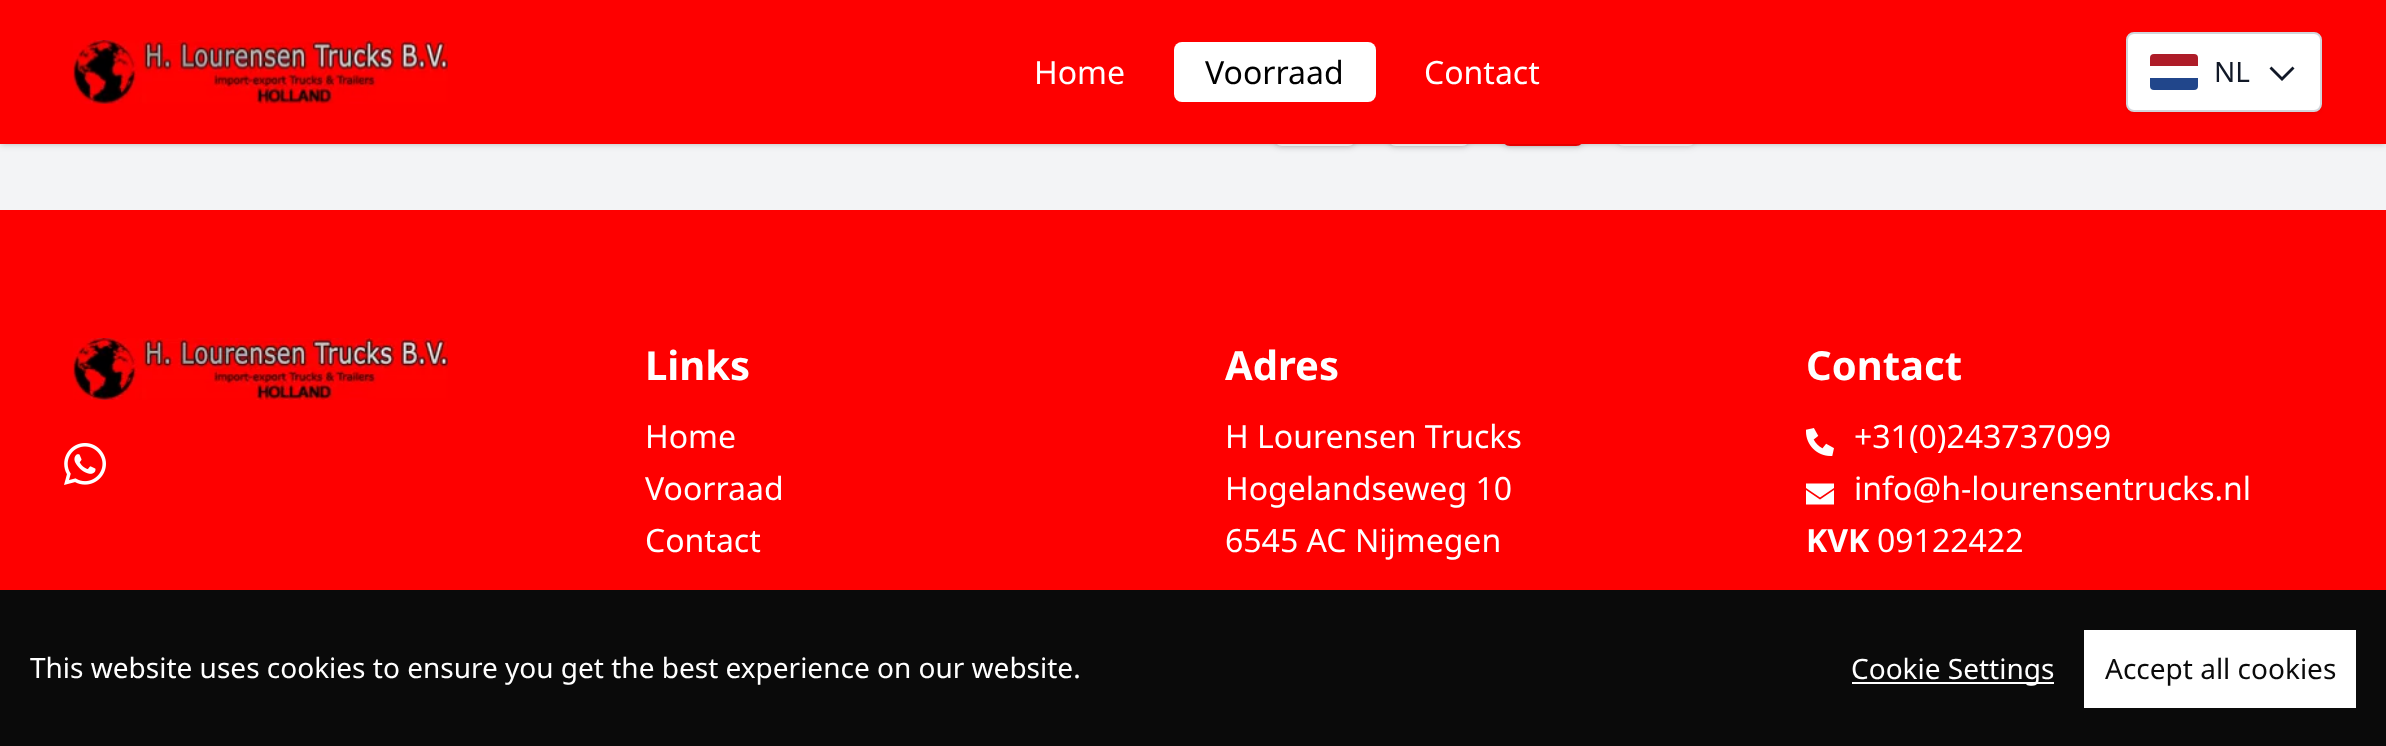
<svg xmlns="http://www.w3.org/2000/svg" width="2386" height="746">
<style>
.a{font:32px Noto Sans;fill:#fff}
.b{font:32px Noto Sans;fill:#000}
.c{font:28px Noto Sans;fill:#111827}
.d{font:bold 40px Noto Sans;fill:#fff}
.e{font:bold 32px Noto Sans;fill:#fff}
.f{font:28px Noto Sans;fill:#fff}
.g{font:28px Noto Sans;fill:#0a0a0a}
</style>
<rect width="100%" height="100%" fill="#f3f4f6"/>
<rect fill="#0000001a" filter="blur(2px)" x="1276" y="70" width="78" height="76" rx="6"/>
<rect fill="#0000001a" filter="blur(3px)" x="1274" y="68" width="82" height="80" rx="8"/>
<rect fill="#fff" x="1274" y="66" width="82" height="80" rx="8"/>
<rect fill="#0000001a" filter="blur(2px)" x="1390" y="70" width="78" height="76" rx="6"/>
<rect fill="#0000001a" filter="blur(3px)" x="1388" y="68" width="82" height="80" rx="8"/>
<rect fill="#fff" x="1388" y="66" width="82" height="80" rx="8"/>
<rect fill="#0000001a" filter="blur(2px)" x="1504" y="70" width="78" height="76" rx="6"/>
<rect fill="#0000001a" filter="blur(3px)" x="1502" y="68" width="82" height="80" rx="8"/>
<rect fill="#fe0000" x="1502" y="66" width="82" height="80" rx="8"/>
<rect fill="#6162621a" filter="blur(2px)" x="1618" y="70" width="76" height="76" rx="6"/>
<rect fill="#6162621a" filter="blur(3px)" x="1616" y="68" width="80" height="80" rx="8"/>
<rect fill="#fafbfb" x="1616" y="66" width="80" height="80" rx="8"/>
<path fill="#0000001a" filter="blur(2px)" d="M2 4h2382v140H2z"/>
<path fill="#0000001a" filter="blur(3px)" d="M0 2h2386v144H0z"/>
<path fill="#fe0000" d="M0 0h2386v144H0z"/>
<image href="1.png" x="73" y="40" width="375" height="64"/>
<rect fill="#fff" x="1174" y="42" width="202" height="60" rx="8"/>
<rect fill="#0000000d" filter="blur(2px)" x="2126" y="34" width="196" height="80" rx="8"/>
<rect fill="#fff" stroke="#d1d5db" stroke-width="2" x="2127" y="33" width="194" height="78" rx="7"/>
<image href="2.png" x="2150" y="54" width="48" height="36"/>
<path fill="#111827" d="M2282 81l12.5-12.5l-2-2l-10.5 10.5l-10.5-10.5l-2 2z"/>
<path fill="#fe0000" d="M0 210h2386v380H0z"/>
<image href="3.png" x="73" y="338" width="375" height="62"/>
<image href="4.png" x="64" y="443" width="42" height="42"/>
<image href="5.png" x="1806" y="428" width="28" height="28"/>
<path fill="#fff" d="M1806 483.5h28v4.5l-14 9.5l-14-9.5zm0 21v-14.5l14 9.5l14-9.5v14.5z"/>
<path fill="#0a0a0a" d="M0 590h2386v156H0z"/>
<path fill="#fff" d="M1852 682h202v2H1852z"/>
<path fill="#fff" d="M2084 630h272v78H2084z"/>
<text class="a" x="1034" y="84">Home</text>
<text class="b" x="1205" y="84">Voorraad</text>
<text class="a" x="1424" y="84">Contact</text>
<text class="c" x="2214" y="82">NL</text>
<text class="d" x="645" y="380">Links</text>
<text class="a" x="645" y="448">Home</text>
<text class="a" x="645" y="500">Voorraad</text>
<text class="a" x="645" y="552">Contact</text>
<text class="d" x="1225" y="380">Adres</text>
<text class="a" x="1225" y="448">H Lourensen Trucks</text>
<text class="a" x="1225" y="500">Hogelandseweg 10</text>
<text class="a" x="1225" y="552">6545 AC Nijmegen</text>
<text class="d" x="1806" y="380">Contact</text>
<text class="a" x="1854" y="448">+31(0)243737099</text>
<text class="a" x="1854" y="500">info@h-lourensentrucks.nl</text>
<text class="e" x="1806" y="552">KVK</text>
<text class="a" x="1877" y="552">09122422</text>
<text class="f" x="30" y="678">This website uses cookies to ensure you get the best experience on our website.</text>
<text class="f" x="1851" y="679">Cookie Settings</text>
<text class="g" x="2105" y="679">Accept all cookies</text>
</svg>
